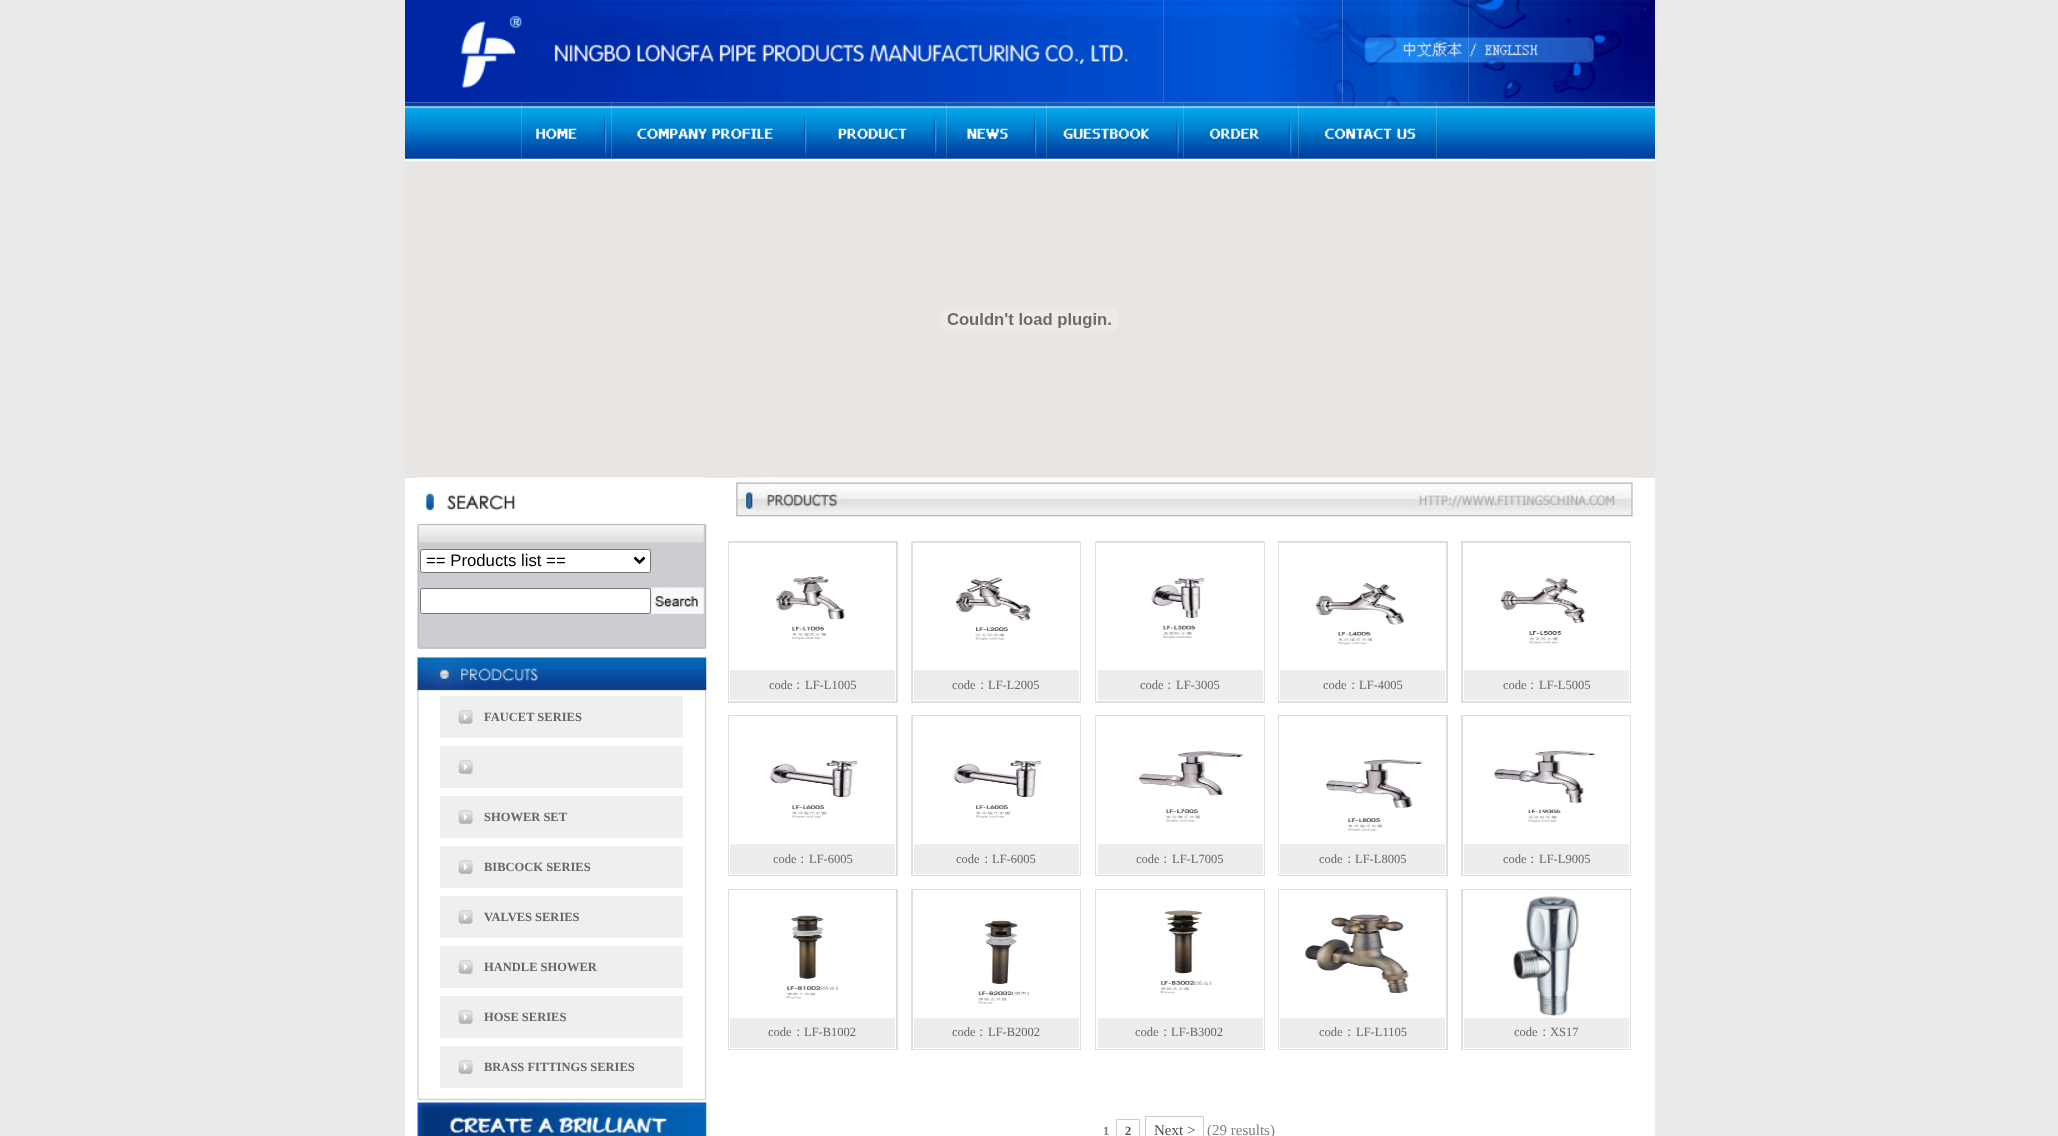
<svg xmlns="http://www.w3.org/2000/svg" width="2058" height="1136">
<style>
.a{font:16.75px Liberation Sans;fill:#000}
.b{font:bold 12.5px Liberation Serif;fill:#666}
.c{font:12.5px Liberation Serif;fill:#666}
.d{font:500 12.5px WenQuanYi Zen Hei;fill:#666}
.e{font:bold 12.5px Liberation Serif;fill:#808080}
.f{font:bold 12.5px Liberation Serif;fill:#4c4c4c}
.g{font:15px Liberation Serif;fill:#4c4c4c}
.h{font:15px Liberation Serif;fill:#808080}
</style>
<rect width="100%" height="100%" fill="#eaeaea"/>
<image href="1.png" x="405" y="0" width="759" height="103"/>
<image href="2.png" x="1163" y="0" width="180" height="103"/>
<image href="3.png" x="1342" y="0" width="127" height="103"/>
<image href="4.png" x="1468" y="0" width="92" height="103"/>
<image href="5.png" x="1560" y="0" width="95" height="103"/>
<path fill="#e9e5e2" d="M405 161h1250v317H405z"/>
<image href="6.png" x="405" y="102" width="117" height="60"/>
<image href="7.png" x="521" y="102" width="91" height="60"/>
<image href="8.png" x="611" y="102" width="204" height="60"/>
<image href="9.png" x="815" y="102" width="132" height="60"/>
<image href="10.png" x="946" y="102" width="101" height="60"/>
<image href="11.png" x="1046" y="102" width="138" height="60"/>
<image href="12.png" x="1183" y="102" width="116" height="60"/>
<image href="13.png" x="1298" y="102" width="139" height="60"/>
<image href="14.png" x="1436" y="102" width="219" height="60"/>
<image href="15.png" x="940" y="309" width="179" height="22"/>
<path fill="#fff" d="M405 478h1250v658H405z"/>
<image href="17.png" x="417" y="523" width="290" height="126"/>
<image href="16.png" x="417" y="477" width="289" height="47"/>
<rect fill="#fff" stroke="#767676" x="420.5" y="549.5" width="230" height="23" rx="2"/>
<path fill="none" stroke="#000" stroke-width="2.5" d="M634.5 557.5l5 5l5-5"/>
<rect fill="#fff" stroke="#767676" x="420.5" y="588.5" width="230" height="25" rx="2"/>
<image href="18.png" x="651" y="587" width="53" height="27"/>
<image href="19.png" x="417" y="657" width="290" height="34"/>
<image href="20.png" x="417" y="691" width="290" height="406"/>
<path fill="#efefef" d="M440 696h243v42H440z"/>
<image href="21.png" x="458" y="710" width="15" height="14"/>
<path fill="#efefef" d="M440 746h243v42H440z"/>
<image href="21.png" x="458" y="760" width="15" height="14"/>
<path fill="#efefef" d="M440 796h243v42H440z"/>
<image href="21.png" x="458" y="810" width="15" height="14"/>
<path fill="#efefef" d="M440 846h243v42H440z"/>
<image href="21.png" x="458" y="860" width="15" height="14"/>
<path fill="#efefef" d="M440 896h243v42H440z"/>
<image href="21.png" x="458" y="910" width="15" height="14"/>
<path fill="#efefef" d="M440 946h243v42H440z"/>
<image href="21.png" x="458" y="960" width="15" height="14"/>
<path fill="#efefef" d="M440 996h243v42H440z"/>
<image href="21.png" x="458" y="1010" width="15" height="14"/>
<path fill="#efefef" d="M440 1046h243v42H440z"/>
<image href="21.png" x="458" y="1060" width="15" height="14"/>
<image href="22.png" x="417" y="1096" width="290" height="5"/>
<image href="23.png" x="417" y="1102" width="290" height="34"/>
<image href="24.png" x="736" y="477" width="900" height="41"/>
<path fill="#dedede" d="M728 541h170v162H728z"/>
<path fill="#fff" d="M729 543h167v158H729z"/>
<image href="25.png" x="775" y="576" width="70" height="64"/>
<path fill="#eeeded" d="M730 670h165v30H730z"/>
<path fill="#dedede" d="M911 541h170v162H911z"/>
<path fill="#fff" d="M913 543h167v158H913z"/>
<image href="26.png" x="955" y="577" width="76" height="63"/>
<path fill="#eeeded" d="M914 670h165v30H914z"/>
<path fill="#dedede" d="M1095 541h170v162H1095z"/>
<path fill="#fff" d="M1096 543h168v158H1096z"/>
<image href="27.png" x="1151" y="578" width="54" height="61"/>
<path fill="#eeeded" d="M1098 670h165v30H1098z"/>
<path fill="#dedede" d="M1278 541h170v162H1278z"/>
<path fill="#fff" d="M1279 543h167v158H1279z"/>
<image href="28.png" x="1316" y="582" width="88" height="63"/>
<path fill="#eeeded" d="M1280 670h165v30H1280z"/>
<path fill="#dedede" d="M1461 541h170v162H1461z"/>
<path fill="#fff" d="M1463 543h167v158H1463z"/>
<image href="29.png" x="1500" y="578" width="85" height="66"/>
<path fill="#eeeded" d="M1464 670h165v30H1464z"/>
<path fill="#dedede" d="M728 715h170v161H728z"/>
<path fill="#fff" d="M729 716h167v159H729z"/>
<image href="30.png" x="769" y="760" width="89" height="59"/>
<path fill="#eeeded" d="M730 844h165v30H730z"/>
<path fill="#dedede" d="M911 715h170v161H911z"/>
<path fill="#fff" d="M913 716h167v159H913z"/>
<image href="31.png" x="953" y="760" width="89" height="59"/>
<path fill="#eeeded" d="M914 844h165v30H914z"/>
<path fill="#dedede" d="M1095 715h170v161H1095z"/>
<path fill="#fff" d="M1096 716h168v159H1096z"/>
<image href="32.png" x="1138" y="751" width="105" height="71"/>
<path fill="#eeeded" d="M1098 844h165v30H1098z"/>
<path fill="#dedede" d="M1278 715h170v161H1278z"/>
<path fill="#fff" d="M1279 716h167v159H1279z"/>
<image href="33.png" x="1326" y="759" width="97" height="73"/>
<path fill="#eeeded" d="M1280 844h165v30H1280z"/>
<path fill="#dedede" d="M1461 715h170v161H1461z"/>
<path fill="#fff" d="M1463 716h167v159H1463z"/>
<image href="34.png" x="1494" y="750" width="102" height="73"/>
<path fill="#eeeded" d="M1464 844h165v30H1464z"/>
<path fill="#dedede" d="M728 889h170v161H728z"/>
<path fill="#fff" d="M729 890h167v159H729z"/>
<image href="35.png" x="786" y="915" width="52" height="84"/>
<path fill="#eeeded" d="M730 1018h165v30H730z"/>
<path fill="#dedede" d="M911 889h170v161H911z"/>
<path fill="#fff" d="M913 890h167v159H913z"/>
<image href="36.png" x="978" y="920" width="52" height="84"/>
<path fill="#eeeded" d="M914 1018h165v30H914z"/>
<path fill="#dedede" d="M1095 889h170v161H1095z"/>
<path fill="#fff" d="M1096 890h168v159H1096z"/>
<image href="37.png" x="1160" y="910" width="52" height="84"/>
<path fill="#eeeded" d="M1098 1018h165v30H1098z"/>
<path fill="#dedede" d="M1278 889h170v161H1278z"/>
<path fill="#fff" d="M1279 890h167v159H1279z"/>
<image href="38.png" x="1304" y="914" width="105" height="80"/>
<path fill="#eeeded" d="M1280 1018h165v30H1280z"/>
<path fill="#dedede" d="M1461 889h170v161H1461z"/>
<path fill="#fff" d="M1463 890h167v159H1463z"/>
<image href="39.png" x="1512" y="896" width="67" height="121"/>
<path fill="#eeeded" d="M1464 1018h165v30H1464z"/>
<path fill="none" stroke="#ccc" d="M1116.5 1119.5h23v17H1116.5z"/>
<path fill="none" stroke="#ccc" d="M1145.5 1116.5h58v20H1145.5z"/>
<text class="a" x="426" y="566">== Products list ==</text>
<text class="b" x="484" y="721">FAUCET SERIES</text>
<text class="b" x="484" y="821">SHOWER SET</text>
<text class="b" x="484" y="871">BIBCOCK SERIES</text>
<text class="b" x="484" y="921">VALVES SERIES</text>
<text class="b" x="484" y="971">HANDLE SHOWER</text>
<text class="b" x="484" y="1021">HOSE SERIES</text>
<text class="b" x="484" y="1071">BRASS FITTINGS SERIES</text>
<text class="c" x="769" y="689">code</text>
<text class="d" x="792" y="689">：</text>
<text class="c" x="805" y="689">LF-L1005</text>
<text class="c" x="952" y="689">code</text>
<text class="d" x="976" y="689">：</text>
<text class="c" x="988" y="689">LF-L2005</text>
<text class="c" x="1140" y="689">code</text>
<text class="d" x="1163" y="689">：</text>
<text class="c" x="1176" y="689">LF-3005</text>
<text class="c" x="1323" y="689">code</text>
<text class="d" x="1347" y="689">：</text>
<text class="c" x="1359" y="689">LF-4005</text>
<text class="c" x="1503" y="689">code</text>
<text class="d" x="1526" y="689">：</text>
<text class="c" x="1539" y="689">LF-L5005</text>
<text class="c" x="773" y="863">code</text>
<text class="d" x="796" y="863">：</text>
<text class="c" x="809" y="863">LF-6005</text>
<text class="c" x="956" y="863">code</text>
<text class="d" x="980" y="863">：</text>
<text class="c" x="992" y="863">LF-6005</text>
<text class="c" x="1136" y="863">code</text>
<text class="d" x="1159" y="863">：</text>
<text class="c" x="1172" y="863">LF-L7005</text>
<text class="c" x="1319" y="863">code</text>
<text class="d" x="1343" y="863">：</text>
<text class="c" x="1355" y="863">LF-L8005</text>
<text class="c" x="1503" y="863">code</text>
<text class="d" x="1526" y="863">：</text>
<text class="c" x="1539" y="863">LF-L9005</text>
<text class="c" x="768" y="1036">code</text>
<text class="d" x="792" y="1036">：</text>
<text class="c" x="804" y="1036">LF-B1002</text>
<text class="c" x="952" y="1036">code</text>
<text class="d" x="975" y="1036">：</text>
<text class="c" x="988" y="1036">LF-B2002</text>
<text class="c" x="1135" y="1036">code</text>
<text class="d" x="1159" y="1036">：</text>
<text class="c" x="1171" y="1036">LF-B3002</text>
<text class="c" x="1319" y="1036">code</text>
<text class="d" x="1343" y="1036">：</text>
<text class="c" x="1356" y="1036">LF-L1105</text>
<text class="c" x="1514" y="1036">code</text>
<text class="d" x="1538" y="1036">：</text>
<text class="c" x="1550" y="1036">XS17</text>
<text class="e" x="1103" y="1135">1</text>
<text class="f" x="1125" y="1135">2</text>
<text class="g" x="1154" y="1135">Next &gt;</text>
<text class="h" x="1207" y="1135">(29 results)</text>
</svg>
